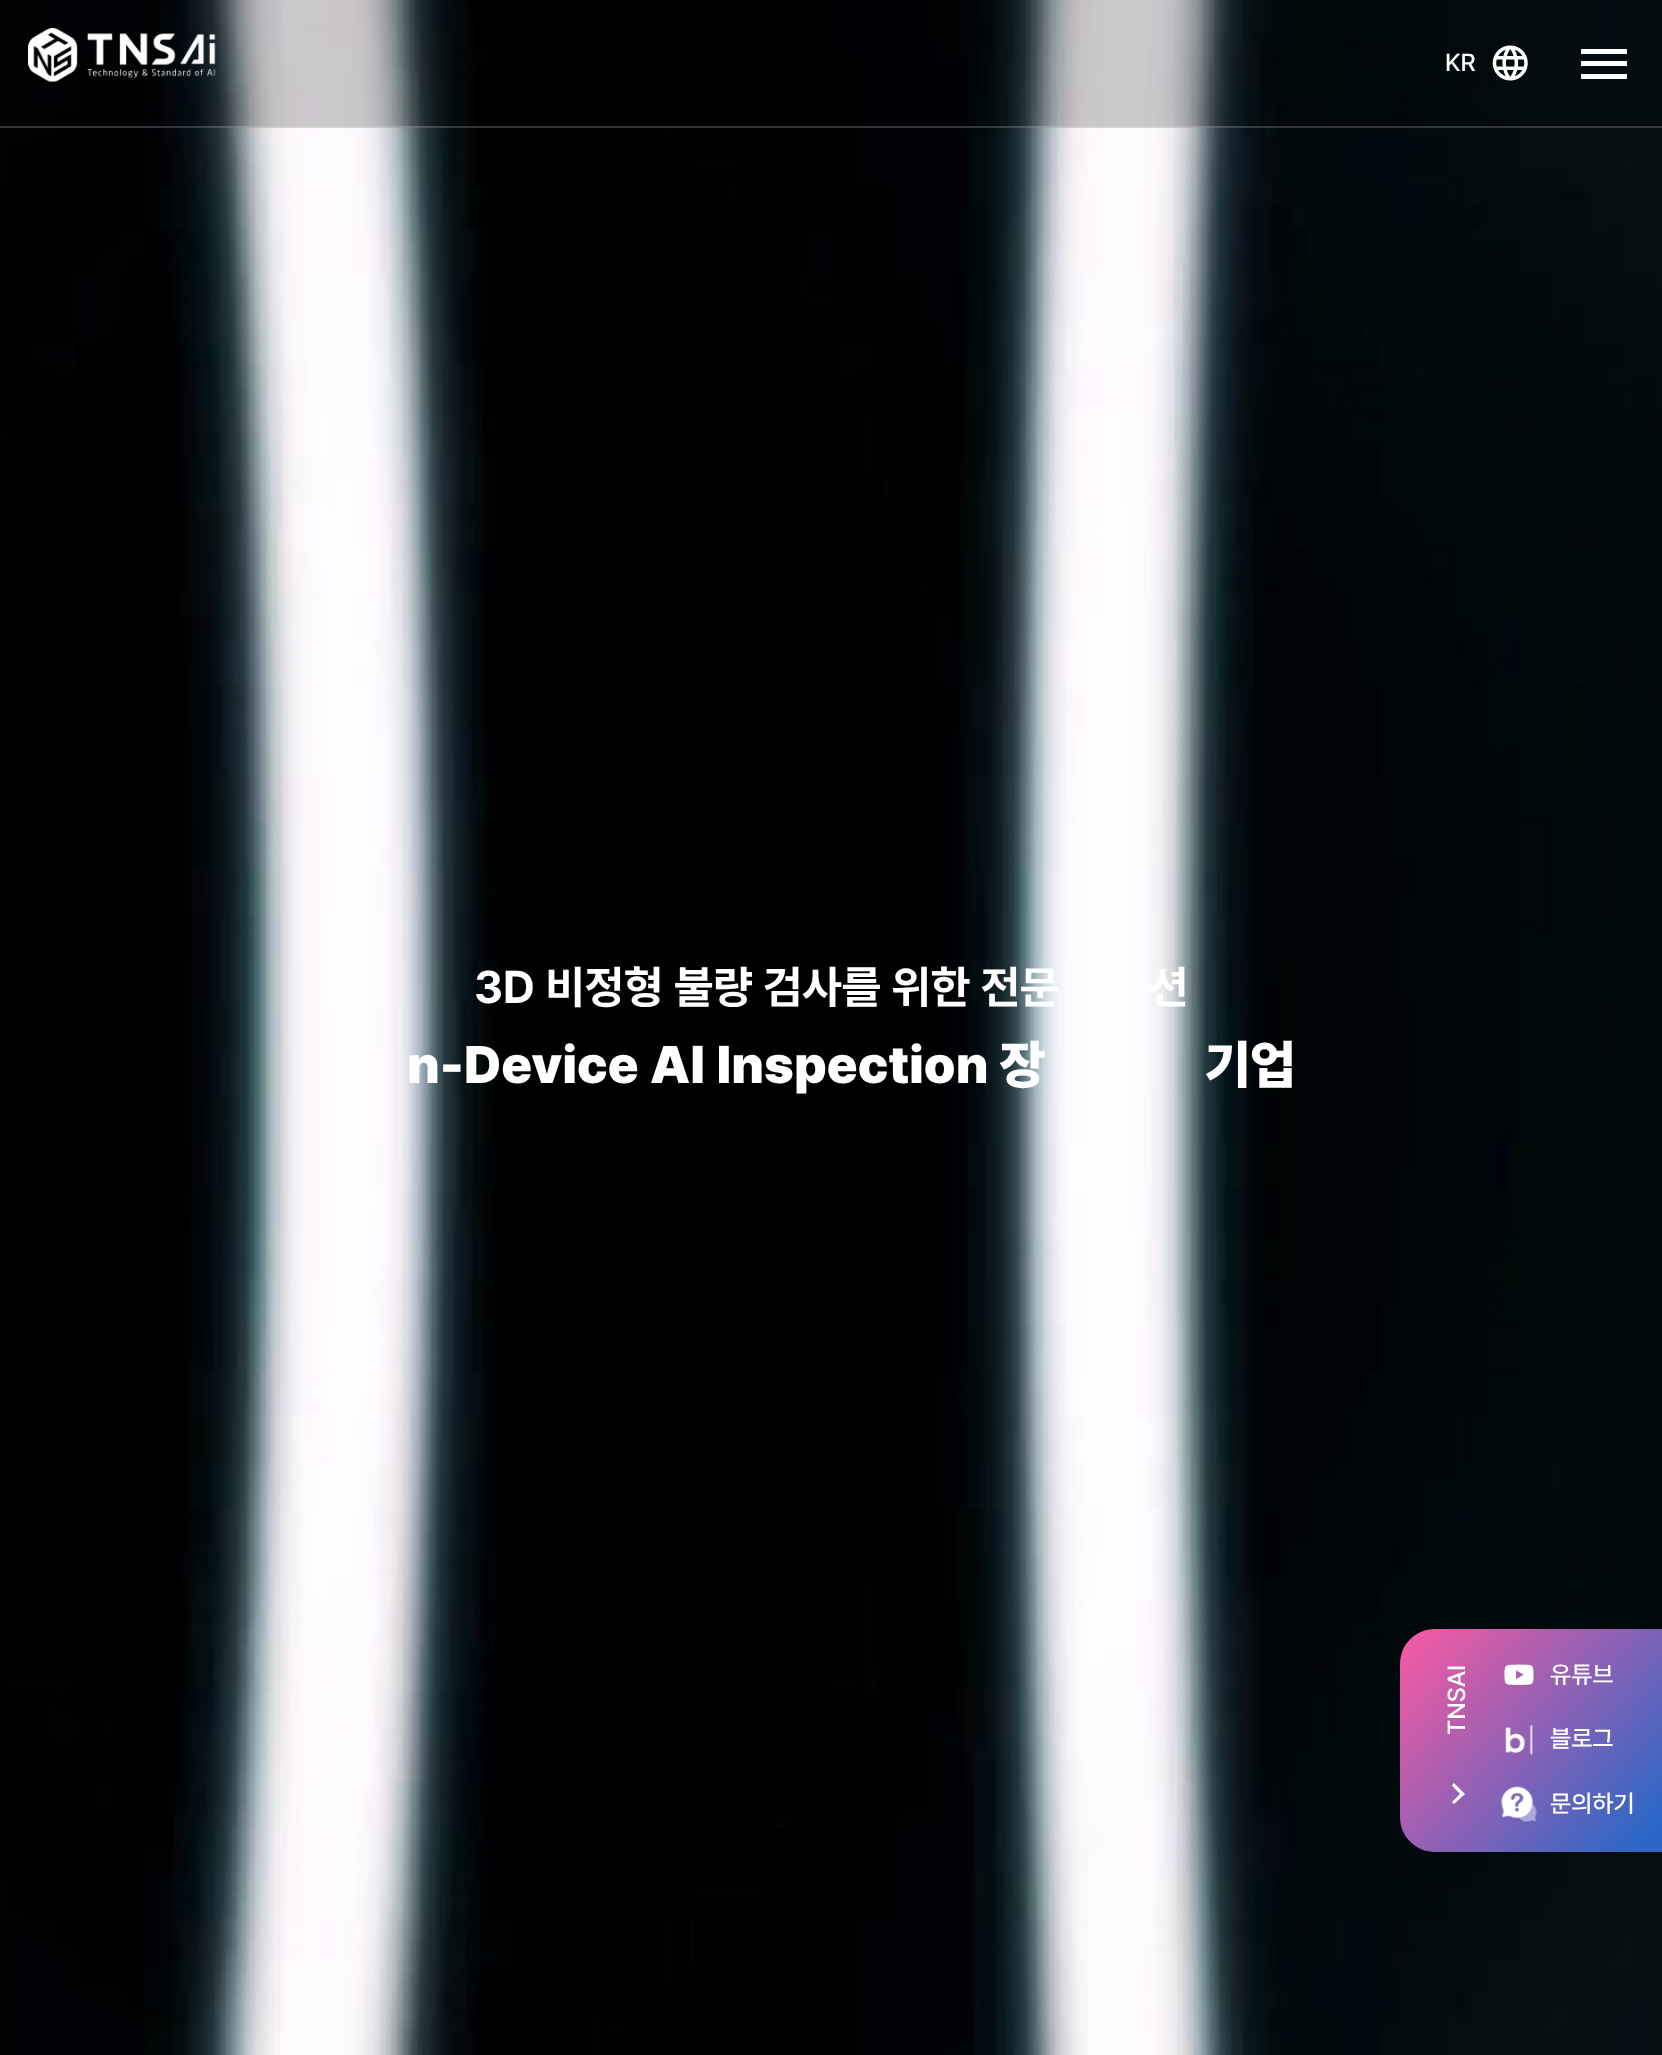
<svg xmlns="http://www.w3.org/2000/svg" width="1662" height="2055">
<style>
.a{font:bold 45.5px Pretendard;fill:#fff}
.b{font:900 52.5px Pretendard;fill:#fff}
.c{font:500 24.5px Pretendard;fill:#fff}
</style>
<defs>
<linearGradient id="g1" gradientUnits="userSpaceOnUse" x1="1400" y1="1629" x2="1662" y2="1852"><stop offset="0.04" stop-color="#f35aa3"/><stop offset="0.93" stop-color="#2c67c6"/></linearGradient>
</defs>
<rect width="100%" height="100%" fill="#fff"/>
<image href="1.png" x="0" y="0" width="1662" height="2055"/>
<path fill="#00000033" d="M166 0h1496v128H166z"/>
<path fill="#ffffff33" d="M0 126h1662v2H0z"/>
<image href="2.png" x="28" y="28" width="188" height="54"/>
<image href="3.png" x="1492" y="45" width="36" height="36"/>
<path fill="#fff" d="M1581 79h46v-5h-46zm0-13h46v-5h-46zm0-17v5h46v-5z"/>
<path fill="url(#g1)" d="M1435 1629h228v223h-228c-19.5 0-35-15.5-35-35v-153c0-19.5 15.5-35 35-35z"/>
<path fill="#fff" d="M1454 1783l-2 2.5l8 8.5l-8 8l2 2l11-10z"/>
<image href="4.png" x="1504" y="1664" width="30" height="21"/>
<image href="5.png" x="1505" y="1725" width="28" height="30"/>
<image href="6.png" x="1500" y="1786" width="37" height="36"/>
<text class="a" x="474" y="1003">3D 비정형 불량 검사를 위한 전문</text>
<text class="a" x="1149" y="1003">션</text>
<text class="b" x="407" y="1083">n-Device AI Inspection 장</text>
<text class="b" x="1205" y="1083">기업</text>
<text class="c" x="1445" y="71">KR</text>
<text class="c" x="1465" y="1735" transform="rotate(-90 1465 1735)">TNSAI</text>
<text class="c" x="1550" y="1683">유튜브</text>
<text class="c" x="1550" y="1747">블로그</text>
<text class="c" x="1550" y="1812">문의하기</text>
</svg>
